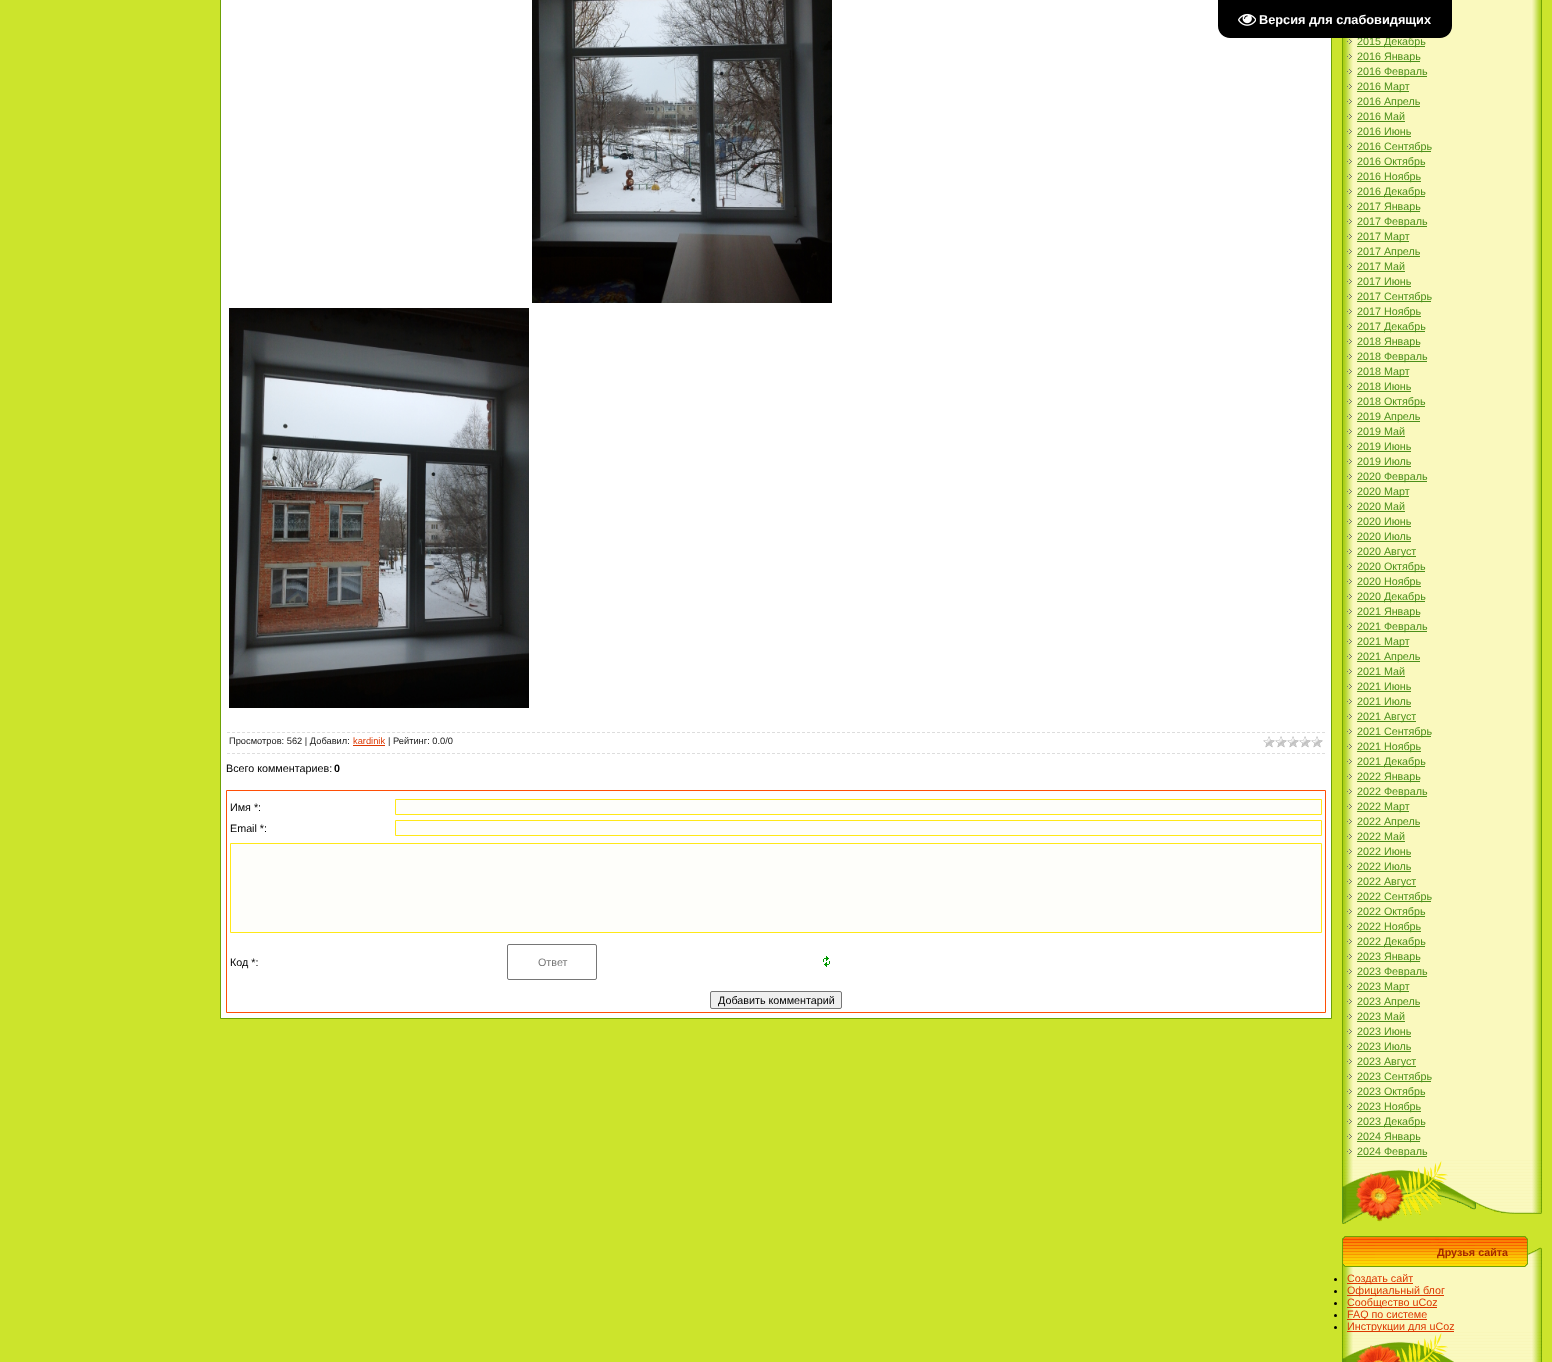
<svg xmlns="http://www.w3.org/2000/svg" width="1552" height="1362">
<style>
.a{font:9.3px Liberation Sans;fill:#1a1a1a}
.b{font:9.3px Liberation Sans;fill:#dc3700}
.c{font:10.75px Liberation Sans;fill:#000}
.d{font:bold 10.75px Liberation Sans;fill:#000}
.e{font:10.75px Liberation Sans;fill:#757575}
.f{font:10.75px Liberation Sans;fill:#4b901a}
.g{font:bold 12.75px Liberation Sans;fill:#fff}
.h{font:bold 10.75px Liberation Sans;fill:#a42900}
.i{font:10.75px Liberation Sans;fill:#dc3700}
</style>
<rect width="100%" height="100%" fill="#cce42c"/>
<path fill="none" stroke="#6da104" d="M220.5 -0.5h1111v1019H220.5z"/>
<path fill="#fff" d="M221 0h1110v1018H221z"/>
<image href="2.png" x="532" y="0" width="300" height="303"/>
<image href="3.png" x="229" y="308" width="300" height="400"/>
<path fill="none" stroke="#ddd" stroke-dasharray="3 2" d="M227 732.5h1098"/>
<path fill="none" stroke="#ddd" stroke-dasharray="3 2" d="M227 753.5h1098"/>
<path fill="#dc3700" d="M353 745h32v1H353z"/>
<image href="4.png" x="1263" y="736" width="60" height="12"/>
<path fill="none" stroke="#ff4e06" d="M226.5 790.5h1099v222H226.5z"/>
<path fill="#fefefa" stroke="#ffe817" d="M395.5 799.5h926v15H395.5z"/>
<path fill="#fefefa" stroke="#ffe817" d="M395.5 820.5h926v15H395.5z"/>
<path fill="#fefefa" stroke="#ffe817" d="M230.5 843.5h1091v89H230.5z"/>
<rect fill="none" stroke="#767676" x="507.5" y="944.5" width="89" height="35" rx="1.5"/>
<image href="5.png" x="823" y="956" width="7" height="11"/>
<rect fill="#efefef" stroke="#767676" x="710.5" y="991.5" width="131" height="17" rx="1.5"/>
<image href="6.png" x="1342" y="0" width="200" height="1160"/>
<image href="7.png" x="1347" y="39" width="5" height="5"/>
<path fill="#4b901a" d="M1357 46h68v1H1357z"/>
<image href="7.png" x="1347" y="54" width="5" height="5"/>
<path fill="#4b901a" d="M1357 61h63v1H1357z"/>
<image href="7.png" x="1347" y="69" width="5" height="5"/>
<path fill="#4b901a" d="M1357 76h70v1H1357z"/>
<image href="7.png" x="1347" y="84" width="5" height="5"/>
<path fill="#4b901a" d="M1357 91h52v1H1357z"/>
<image href="7.png" x="1347" y="99" width="5" height="5"/>
<path fill="#4b901a" d="M1357 106h63v1H1357z"/>
<image href="7.png" x="1347" y="114" width="5" height="5"/>
<path fill="#4b901a" d="M1357 121h48v1H1357z"/>
<image href="7.png" x="1347" y="129" width="5" height="5"/>
<path fill="#4b901a" d="M1357 136h54v1H1357z"/>
<image href="7.png" x="1347" y="144" width="5" height="5"/>
<path fill="#4b901a" d="M1357 151h74v1H1357z"/>
<image href="7.png" x="1347" y="159" width="5" height="5"/>
<path fill="#4b901a" d="M1357 166h68v1H1357z"/>
<image href="7.png" x="1347" y="174" width="5" height="5"/>
<path fill="#4b901a" d="M1357 181h64v1H1357z"/>
<image href="7.png" x="1347" y="189" width="5" height="5"/>
<path fill="#4b901a" d="M1357 196h68v1H1357z"/>
<image href="7.png" x="1347" y="204" width="5" height="5"/>
<path fill="#4b901a" d="M1357 211h63v1H1357z"/>
<image href="7.png" x="1347" y="219" width="5" height="5"/>
<path fill="#4b901a" d="M1357 226h70v1H1357z"/>
<image href="7.png" x="1347" y="234" width="5" height="5"/>
<path fill="#4b901a" d="M1357 241h52v1H1357z"/>
<image href="7.png" x="1347" y="249" width="5" height="5"/>
<path fill="#4b901a" d="M1357 256h63v1H1357z"/>
<image href="7.png" x="1347" y="264" width="5" height="5"/>
<path fill="#4b901a" d="M1357 271h48v1H1357z"/>
<image href="7.png" x="1347" y="279" width="5" height="5"/>
<path fill="#4b901a" d="M1357 286h54v1H1357z"/>
<image href="7.png" x="1347" y="294" width="5" height="5"/>
<path fill="#4b901a" d="M1357 301h74v1H1357z"/>
<image href="7.png" x="1347" y="309" width="5" height="5"/>
<path fill="#4b901a" d="M1357 316h64v1H1357z"/>
<image href="7.png" x="1347" y="324" width="5" height="5"/>
<path fill="#4b901a" d="M1357 331h68v1H1357z"/>
<image href="7.png" x="1347" y="339" width="5" height="5"/>
<path fill="#4b901a" d="M1357 346h63v1H1357z"/>
<image href="7.png" x="1347" y="354" width="5" height="5"/>
<path fill="#4b901a" d="M1357 361h70v1H1357z"/>
<image href="7.png" x="1347" y="369" width="5" height="5"/>
<path fill="#4b901a" d="M1357 376h52v1H1357z"/>
<image href="7.png" x="1347" y="384" width="5" height="5"/>
<path fill="#4b901a" d="M1357 391h54v1H1357z"/>
<image href="7.png" x="1347" y="399" width="5" height="5"/>
<path fill="#4b901a" d="M1357 406h68v1H1357z"/>
<image href="7.png" x="1347" y="414" width="5" height="5"/>
<path fill="#4b901a" d="M1357 421h63v1H1357z"/>
<image href="7.png" x="1347" y="429" width="5" height="5"/>
<path fill="#4b901a" d="M1357 436h48v1H1357z"/>
<image href="7.png" x="1347" y="444" width="5" height="5"/>
<path fill="#4b901a" d="M1357 451h54v1H1357z"/>
<image href="7.png" x="1347" y="459" width="5" height="5"/>
<path fill="#4b901a" d="M1357 466h54v1H1357z"/>
<image href="7.png" x="1347" y="474" width="5" height="5"/>
<path fill="#4b901a" d="M1357 481h70v1H1357z"/>
<image href="7.png" x="1347" y="489" width="5" height="5"/>
<path fill="#4b901a" d="M1357 496h52v1H1357z"/>
<image href="7.png" x="1347" y="504" width="5" height="5"/>
<path fill="#4b901a" d="M1357 511h48v1H1357z"/>
<image href="7.png" x="1347" y="519" width="5" height="5"/>
<path fill="#4b901a" d="M1357 526h54v1H1357z"/>
<image href="7.png" x="1347" y="534" width="5" height="5"/>
<path fill="#4b901a" d="M1357 541h54v1H1357z"/>
<image href="7.png" x="1347" y="549" width="5" height="5"/>
<path fill="#4b901a" d="M1357 556h59v1H1357z"/>
<image href="7.png" x="1347" y="564" width="5" height="5"/>
<path fill="#4b901a" d="M1357 571h68v1H1357z"/>
<image href="7.png" x="1347" y="579" width="5" height="5"/>
<path fill="#4b901a" d="M1357 586h64v1H1357z"/>
<image href="7.png" x="1347" y="594" width="5" height="5"/>
<path fill="#4b901a" d="M1357 601h68v1H1357z"/>
<image href="7.png" x="1347" y="609" width="5" height="5"/>
<path fill="#4b901a" d="M1357 616h63v1H1357z"/>
<image href="7.png" x="1347" y="624" width="5" height="5"/>
<path fill="#4b901a" d="M1357 631h70v1H1357z"/>
<image href="7.png" x="1347" y="639" width="5" height="5"/>
<path fill="#4b901a" d="M1357 646h52v1H1357z"/>
<image href="7.png" x="1347" y="654" width="5" height="5"/>
<path fill="#4b901a" d="M1357 661h63v1H1357z"/>
<image href="7.png" x="1347" y="669" width="5" height="5"/>
<path fill="#4b901a" d="M1357 676h48v1H1357z"/>
<image href="7.png" x="1347" y="684" width="5" height="5"/>
<path fill="#4b901a" d="M1357 691h54v1H1357z"/>
<image href="7.png" x="1347" y="699" width="5" height="5"/>
<path fill="#4b901a" d="M1357 706h54v1H1357z"/>
<image href="7.png" x="1347" y="714" width="5" height="5"/>
<path fill="#4b901a" d="M1357 721h59v1H1357z"/>
<image href="7.png" x="1347" y="729" width="5" height="5"/>
<path fill="#4b901a" d="M1357 736h74v1H1357z"/>
<image href="7.png" x="1347" y="744" width="5" height="5"/>
<path fill="#4b901a" d="M1357 751h64v1H1357z"/>
<image href="7.png" x="1347" y="759" width="5" height="5"/>
<path fill="#4b901a" d="M1357 766h68v1H1357z"/>
<image href="7.png" x="1347" y="774" width="5" height="5"/>
<path fill="#4b901a" d="M1357 781h63v1H1357z"/>
<image href="7.png" x="1347" y="789" width="5" height="5"/>
<path fill="#4b901a" d="M1357 796h70v1H1357z"/>
<image href="7.png" x="1347" y="804" width="5" height="5"/>
<path fill="#4b901a" d="M1357 811h52v1H1357z"/>
<image href="7.png" x="1347" y="819" width="5" height="5"/>
<path fill="#4b901a" d="M1357 826h63v1H1357z"/>
<image href="7.png" x="1347" y="834" width="5" height="5"/>
<path fill="#4b901a" d="M1357 841h48v1H1357z"/>
<image href="7.png" x="1347" y="849" width="5" height="5"/>
<path fill="#4b901a" d="M1357 856h54v1H1357z"/>
<image href="7.png" x="1347" y="864" width="5" height="5"/>
<path fill="#4b901a" d="M1357 871h54v1H1357z"/>
<image href="7.png" x="1347" y="879" width="5" height="5"/>
<path fill="#4b901a" d="M1357 886h59v1H1357z"/>
<image href="7.png" x="1347" y="894" width="5" height="5"/>
<path fill="#4b901a" d="M1357 901h74v1H1357z"/>
<image href="7.png" x="1347" y="909" width="5" height="5"/>
<path fill="#4b901a" d="M1357 916h68v1H1357z"/>
<image href="7.png" x="1347" y="924" width="5" height="5"/>
<path fill="#4b901a" d="M1357 931h64v1H1357z"/>
<image href="7.png" x="1347" y="939" width="5" height="5"/>
<path fill="#4b901a" d="M1357 946h68v1H1357z"/>
<image href="7.png" x="1347" y="954" width="5" height="5"/>
<path fill="#4b901a" d="M1357 961h63v1H1357z"/>
<image href="7.png" x="1347" y="969" width="5" height="5"/>
<path fill="#4b901a" d="M1357 976h70v1H1357z"/>
<image href="7.png" x="1347" y="984" width="5" height="5"/>
<path fill="#4b901a" d="M1357 991h52v1H1357z"/>
<image href="7.png" x="1347" y="999" width="5" height="5"/>
<path fill="#4b901a" d="M1357 1006h63v1H1357z"/>
<image href="7.png" x="1347" y="1014" width="5" height="5"/>
<path fill="#4b901a" d="M1357 1021h48v1H1357z"/>
<image href="7.png" x="1347" y="1029" width="5" height="5"/>
<path fill="#4b901a" d="M1357 1036h54v1H1357z"/>
<image href="7.png" x="1347" y="1044" width="5" height="5"/>
<path fill="#4b901a" d="M1357 1051h54v1H1357z"/>
<image href="7.png" x="1347" y="1059" width="5" height="5"/>
<path fill="#4b901a" d="M1357 1066h59v1H1357z"/>
<image href="7.png" x="1347" y="1074" width="5" height="5"/>
<path fill="#4b901a" d="M1357 1081h74v1H1357z"/>
<image href="7.png" x="1347" y="1089" width="5" height="5"/>
<path fill="#4b901a" d="M1357 1096h68v1H1357z"/>
<image href="7.png" x="1347" y="1104" width="5" height="5"/>
<path fill="#4b901a" d="M1357 1111h64v1H1357z"/>
<image href="7.png" x="1347" y="1119" width="5" height="5"/>
<path fill="#4b901a" d="M1357 1126h68v1H1357z"/>
<image href="7.png" x="1347" y="1134" width="5" height="5"/>
<path fill="#4b901a" d="M1357 1141h63v1H1357z"/>
<image href="7.png" x="1347" y="1149" width="5" height="5"/>
<path fill="#4b901a" d="M1357 1156h70v1H1357z"/>
<image href="8.png" x="1342" y="1160" width="200" height="64"/>
<image href="9.png" x="1342" y="1236" width="200" height="31"/>
<image href="10.png" x="1342" y="1267" width="200" height="65"/>
<circle fill="#000" cx="1335.5" cy="1279.5" r="1.5"/>
<path fill="#dc3700" d="M1347 1283h66v1H1347z"/>
<circle fill="#000" cx="1335.5" cy="1291.5" r="1.5"/>
<path fill="#dc3700" d="M1347 1295h97v1H1347z"/>
<circle fill="#000" cx="1335.5" cy="1303.5" r="1.5"/>
<path fill="#dc3700" d="M1347 1307h90v1H1347z"/>
<circle fill="#000" cx="1335.5" cy="1315.5" r="1.5"/>
<path fill="#dc3700" d="M1347 1319h80v1H1347z"/>
<circle fill="#000" cx="1335.5" cy="1327.5" r="1.5"/>
<path fill="#dc3700" d="M1347 1331h107v1H1347z"/>
<text class="a" x="229" y="744">Просмотров: 562 | Добавил:</text>
<text class="b" x="353" y="744">kardinik</text>
<text class="a" x="388" y="744">| Рейтинг: 0.0/0</text>
<text class="c" x="226" y="772">Всего комментариев:</text>
<text class="d" x="334" y="772">0</text>
<text class="c" x="230" y="811">Имя *:</text>
<text class="c" x="230" y="832">Email *:</text>
<text class="c" x="230" y="966">Код *:</text>
<text class="e" x="538" y="966">Ответ</text>
<text class="c" x="718" y="1004">Добавить комментарий</text>
<text class="f" x="1357" y="45">2015 Декабрь</text>
<path fill="#000" d="M1218 0h234v26c0 6.5-5.5 12-12 12h-210c-6.5 0-12-5.5-12-12z"/>
<image href="1.png" x="1238" y="13" width="18" height="13"/>
<text class="g" x="1259" y="24">Версия для слабовидящих</text>
<text class="f" x="1357" y="60">2016 Январь</text>
<text class="f" x="1357" y="75">2016 Февраль</text>
<text class="f" x="1357" y="90">2016 Март</text>
<text class="f" x="1357" y="105">2016 Апрель</text>
<text class="f" x="1357" y="120">2016 Май</text>
<text class="f" x="1357" y="135">2016 Июнь</text>
<text class="f" x="1357" y="150">2016 Сентябрь</text>
<text class="f" x="1357" y="165">2016 Октябрь</text>
<text class="f" x="1357" y="180">2016 Ноябрь</text>
<text class="f" x="1357" y="195">2016 Декабрь</text>
<text class="f" x="1357" y="210">2017 Январь</text>
<text class="f" x="1357" y="225">2017 Февраль</text>
<text class="f" x="1357" y="240">2017 Март</text>
<text class="f" x="1357" y="255">2017 Апрель</text>
<text class="f" x="1357" y="270">2017 Май</text>
<text class="f" x="1357" y="285">2017 Июнь</text>
<text class="f" x="1357" y="300">2017 Сентябрь</text>
<text class="f" x="1357" y="315">2017 Ноябрь</text>
<text class="f" x="1357" y="330">2017 Декабрь</text>
<text class="f" x="1357" y="345">2018 Январь</text>
<text class="f" x="1357" y="360">2018 Февраль</text>
<text class="f" x="1357" y="375">2018 Март</text>
<text class="f" x="1357" y="390">2018 Июнь</text>
<text class="f" x="1357" y="405">2018 Октябрь</text>
<text class="f" x="1357" y="420">2019 Апрель</text>
<text class="f" x="1357" y="435">2019 Май</text>
<text class="f" x="1357" y="450">2019 Июнь</text>
<text class="f" x="1357" y="465">2019 Июль</text>
<text class="f" x="1357" y="480">2020 Февраль</text>
<text class="f" x="1357" y="495">2020 Март</text>
<text class="f" x="1357" y="510">2020 Май</text>
<text class="f" x="1357" y="525">2020 Июнь</text>
<text class="f" x="1357" y="540">2020 Июль</text>
<text class="f" x="1357" y="555">2020 Август</text>
<text class="f" x="1357" y="570">2020 Октябрь</text>
<text class="f" x="1357" y="585">2020 Ноябрь</text>
<text class="f" x="1357" y="600">2020 Декабрь</text>
<text class="f" x="1357" y="615">2021 Январь</text>
<text class="f" x="1357" y="630">2021 Февраль</text>
<text class="f" x="1357" y="645">2021 Март</text>
<text class="f" x="1357" y="660">2021 Апрель</text>
<text class="f" x="1357" y="675">2021 Май</text>
<text class="f" x="1357" y="690">2021 Июнь</text>
<text class="f" x="1357" y="705">2021 Июль</text>
<text class="f" x="1357" y="720">2021 Август</text>
<text class="f" x="1357" y="735">2021 Сентябрь</text>
<text class="f" x="1357" y="750">2021 Ноябрь</text>
<text class="f" x="1357" y="765">2021 Декабрь</text>
<text class="f" x="1357" y="780">2022 Январь</text>
<text class="f" x="1357" y="795">2022 Февраль</text>
<text class="f" x="1357" y="810">2022 Март</text>
<text class="f" x="1357" y="825">2022 Апрель</text>
<text class="f" x="1357" y="840">2022 Май</text>
<text class="f" x="1357" y="855">2022 Июнь</text>
<text class="f" x="1357" y="870">2022 Июль</text>
<text class="f" x="1357" y="885">2022 Август</text>
<text class="f" x="1357" y="900">2022 Сентябрь</text>
<text class="f" x="1357" y="915">2022 Октябрь</text>
<text class="f" x="1357" y="930">2022 Ноябрь</text>
<text class="f" x="1357" y="945">2022 Декабрь</text>
<text class="f" x="1357" y="960">2023 Январь</text>
<text class="f" x="1357" y="975">2023 Февраль</text>
<text class="f" x="1357" y="990">2023 Март</text>
<text class="f" x="1357" y="1005">2023 Апрель</text>
<text class="f" x="1357" y="1020">2023 Май</text>
<text class="f" x="1357" y="1035">2023 Июнь</text>
<text class="f" x="1357" y="1050">2023 Июль</text>
<text class="f" x="1357" y="1065">2023 Август</text>
<text class="f" x="1357" y="1080">2023 Сентябрь</text>
<text class="f" x="1357" y="1095">2023 Октябрь</text>
<text class="f" x="1357" y="1110">2023 Ноябрь</text>
<text class="f" x="1357" y="1125">2023 Декабрь</text>
<text class="f" x="1357" y="1140">2024 Январь</text>
<text class="f" x="1357" y="1155">2024 Февраль</text>
<text class="h" x="1437" y="1256">Друзья сайта</text>
<text class="i" x="1347" y="1282">Создать сайт</text>
<text class="i" x="1347" y="1294">Официальный блог</text>
<text class="i" x="1347" y="1306">Сообщество uCoz</text>
<text class="i" x="1347" y="1318">FAQ по системе</text>
<text class="i" x="1347" y="1330">Инструкции для uCoz</text>
<image href="11.png" x="1342" y="1332" width="200" height="30"/>
</svg>
